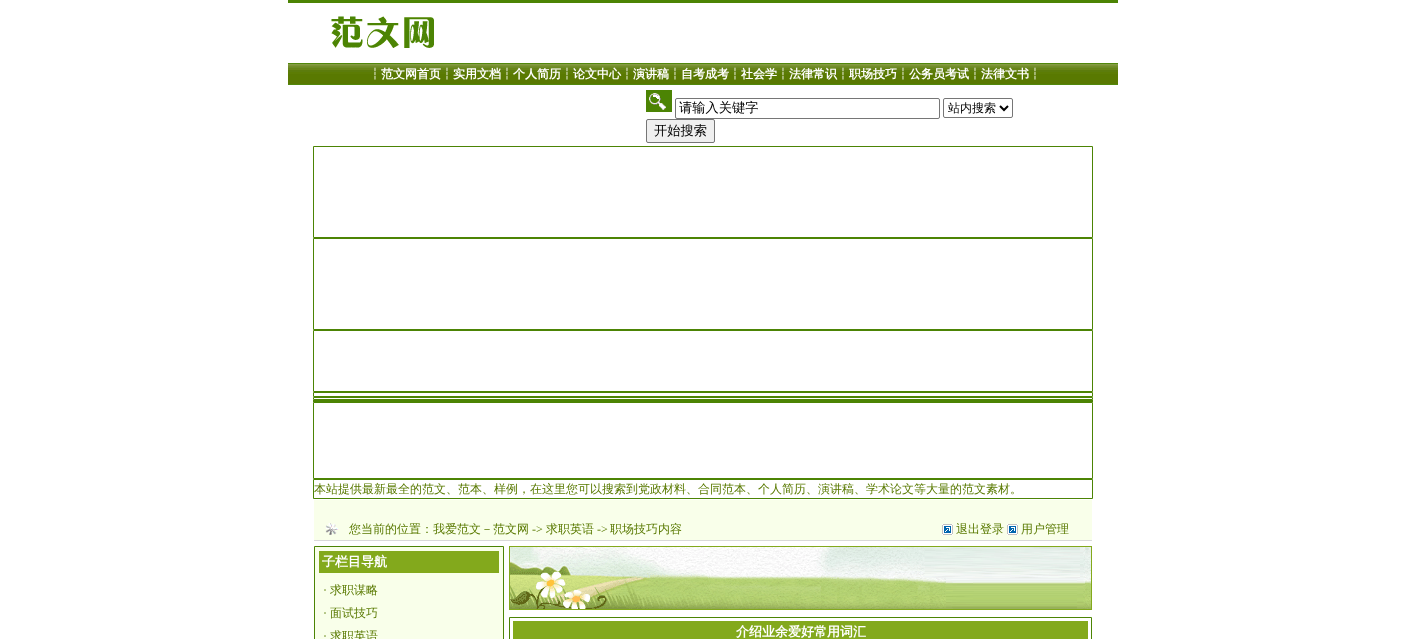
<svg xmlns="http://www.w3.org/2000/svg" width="1406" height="639">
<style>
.a{font:bold 12px WenQuanYi Zen Hei;fill:#fff}
.b{font:500 13.25px WenQuanYi Zen Hei;fill:#000}
.c{font:500 12px WenQuanYi Zen Hei;fill:#000}
.d{font:500 12px WenQuanYi Zen Hei;fill:#597901}
.e{font:12px Liberation Serif;fill:#597901}
.f{font:bold 13px WenQuanYi Zen Hei;fill:#fff}
</style>
<rect width="100%" height="100%" fill="#fff"/>
<path fill="#4c8404" d="M288 0h830v3H288z"/>
<image href="1.png" x="331" y="16" width="103" height="32"/>
<image href="2.png" x="288" y="63" width="830" height="22"/>
<image href="3.png" x="646" y="90" width="26" height="22"/>
<rect fill="none" stroke="#767676" x="675.5" y="98.5" width="264" height="20" rx="1.5"/>
<rect fill="none" stroke="#767676" x="943.5" y="98.5" width="69" height="19" rx="1.5"/>
<path fill="none" stroke="#000" stroke-width="2" d="M1000 106l4 4l4-4"/>
<rect fill="#efefef" stroke="#767676" x="646.5" y="119.5" width="68" height="23" rx="1.5"/>
<path fill="none" stroke="#4c8404" d="M313.5 146.5h779v91H313.5z"/>
<path fill="none" stroke="#4c8404" d="M313.5 238.5h779v91H313.5z"/>
<path fill="none" stroke="#4c8404" d="M313.5 330.5h779v61H313.5z"/>
<path fill="none" stroke="#4c8404" d="M313.5 392.5h779v4H313.5z"/>
<path fill="none" stroke="#4c8404" d="M313.5 397.5h779v2H313.5z"/>
<path fill="#4c8404" d="M313 400h780v2H313z"/>
<path fill="none" stroke="#4c8404" d="M313.5 402.5h779v76H313.5z"/>
<path fill="none" stroke="#4c8404" d="M313.5 479.5h779v19H313.5z"/>
<path fill="#f9ffea" d="M314 500h778v40H314z"/>
<image href="4.png" x="325" y="523" width="13" height="12"/>
<image href="5.png" x="942" y="524" width="11" height="11"/>
<image href="5.png" x="1007" y="524" width="11" height="11"/>
<path fill="#d9d9d9" d="M314 540h778v1H314z"/>
<path fill="#f9ffea" stroke="#4c8404" d="M314.5 546.5h189v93H314.5z"/>
<path fill="#83a91c" d="M319 551h180v22H319z"/>
<image href="6.png" x="509" y="546" width="583" height="64"/>
<path fill="none" stroke="#4c8404" d="M509.5 617.5h582v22H509.5z"/>
<path fill="#83a91c" d="M513 621h575v18H513z"/>
<text class="a" x="369" y="78">┆范文网首页┆实用文档┆个人简历┆论文中心┆演讲稿┆自考成考┆社会学┆法律常识┆职场技巧┆公务员考试┆法律文书┆</text>
<text class="b" x="679" y="112">请输入关键字</text>
<text class="c" x="948" y="112">站内搜索</text>
<text class="b" x="654" y="135">开始搜索</text>
<text class="d" x="314" y="493">本站提供最新最全的范文、范本、样例，在这里您可以搜索到党政材料、合同范本、个人简历、演讲稿、学术论文等大量的范文素材。</text>
<text class="d" x="349" y="533">您当前的位置：我爱范文－范文网</text>
<text class="e" x="532" y="533">-&gt;</text>
<text class="d" x="546" y="533">求职英语</text>
<text class="e" x="597" y="533">-&gt;</text>
<text class="d" x="610" y="533">职场技巧内容</text>
<text class="d" x="956" y="533">退出登录</text>
<text class="d" x="1021" y="533">用户管理</text>
<text class="f" x="322" y="566">子栏目导航</text>
<text class="e" x="323" y="594">·</text>
<text class="d" x="330" y="594">求职谋略</text>
<text class="e" x="323" y="617">·</text>
<text class="d" x="330" y="617">面试技巧</text>
<text class="e" x="323" y="640">·</text>
<text class="d" x="330" y="640">求职英语</text>
<text class="f" x="736" y="636">介绍业余爱好常用词汇</text>
</svg>
